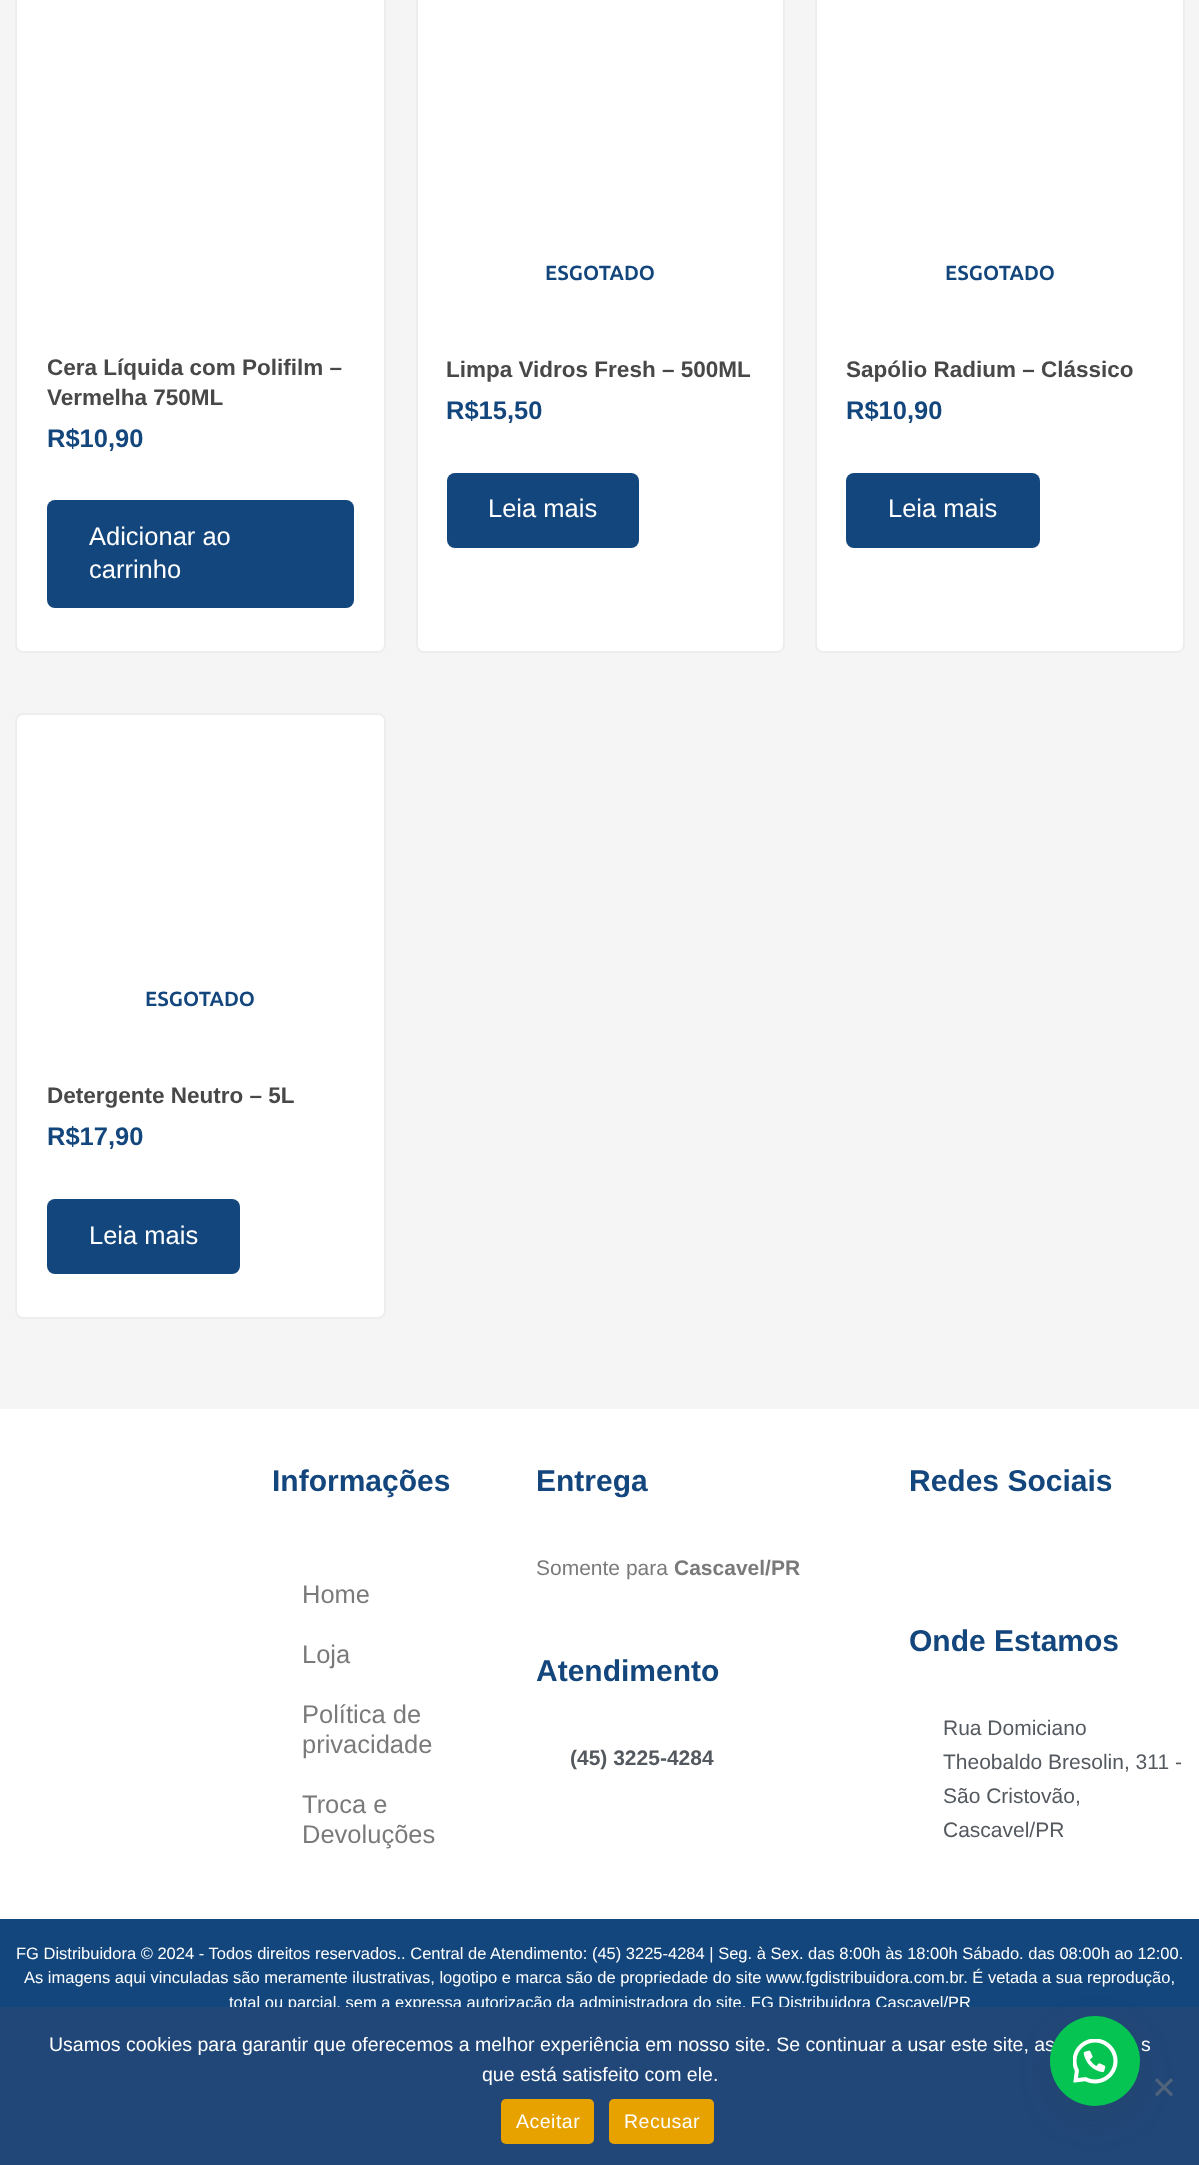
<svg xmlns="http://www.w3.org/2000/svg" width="1199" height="2165">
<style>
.a{font:bold 22.5px Liberation Sans;fill:#484848}
.b{font:bold 25.5px Liberation Sans;fill:#13467c}
.c{font:25.5px Liberation Sans;fill:#fff}
.d{font:bold 20.5px Ubuntu;fill:#13467c}
.e{font:bold 30px Liberation Sans;fill:#13467c}
.f{font:25.5px Liberation Sans;fill:#7a7a7a}
.g{font:21px Liberation Sans;fill:#7a7a7a}
.h{font:bold 21px Liberation Sans;fill:#7a7a7a}
.i{font:bold 21px Liberation Sans;fill:#54595f}
.j{font:21px Liberation Sans;fill:#54595f}
.k{font:16.5px Liberation Sans;fill:#fff}
.l{font:19.5px Liberation Sans;fill:#fff}
.m{font:19.5px Liberation Sans;letter-spacing:0.5px;fill:#fff}
</style>
<rect width="100%" height="100%" fill="#f5f5f5"/>
<rect fill="#fff" stroke="#ededed" stroke-width="2" x="16" y="-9" width="369" height="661" rx="7"/>
<rect fill="#13467c" x="47" y="500" width="307" height="108" rx="8"/>
<rect fill="#fff" stroke="#ededed" stroke-width="2" x="417" y="-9" width="367" height="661" rx="7"/>
<rect fill="#13467c" x="447" y="473" width="192" height="75" rx="8"/>
<rect fill="#fff" stroke="#ededed" stroke-width="2" x="816" y="-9" width="368" height="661" rx="7"/>
<rect fill="#13467c" x="846" y="473" width="194" height="75" rx="8"/>
<rect fill="#fff" stroke="#ededed" stroke-width="2" x="16" y="714" width="369" height="604" rx="7"/>
<rect fill="#13467c" x="47" y="1199" width="193" height="75" rx="8"/>
<path fill="#fff" d="M0 1409h1199v510H0z"/>
<path fill="#13467c" d="M0 1919h1199v88H0z"/>
<text class="a" x="47" y="375">Cera Líquida com Polifilm –</text>
<text class="a" x="47" y="405">Vermelha 750ML</text>
<text class="b" x="47" y="447">R$10,90</text>
<text class="c" x="89" y="545">Adicionar ao</text>
<text class="c" x="89" y="578">carrinho</text>
<text class="d" x="545" y="280">ESGOTADO</text>
<text class="a" x="446" y="377">Limpa Vidros Fresh – 500ML</text>
<text class="b" x="446" y="419">R$15,50</text>
<text class="c" x="488" y="517">Leia mais</text>
<text class="d" x="945" y="280">ESGOTADO</text>
<text class="a" x="846" y="377">Sapólio Radium – Clássico</text>
<text class="b" x="846" y="419">R$10,90</text>
<text class="c" x="888" y="517">Leia mais</text>
<text class="d" x="145" y="1006">ESGOTADO</text>
<text class="a" x="47" y="1103">Detergente Neutro – 5L</text>
<text class="b" x="47" y="1145">R$17,90</text>
<text class="c" x="89" y="1244">Leia mais</text>
<text class="e" x="272" y="1491">Informações</text>
<text class="f" x="302" y="1603">Home</text>
<text class="f" x="302" y="1663">Loja</text>
<text class="f" x="302" y="1723">Política de</text>
<text class="f" x="302" y="1753">privacidade</text>
<text class="f" x="302" y="1813">Troca e</text>
<text class="f" x="302" y="1843">Devoluções</text>
<text class="e" x="536" y="1491">Entrega</text>
<text class="g" x="536" y="1575">Somente para</text>
<text class="h" x="674" y="1575">Cascavel/PR</text>
<text class="e" x="536" y="1681">Atendimento</text>
<text class="i" x="570" y="1765">(45) 3225-4284</text>
<text class="e" x="909" y="1491">Redes Sociais</text>
<text class="e" x="909" y="1651">Onde Estamos</text>
<text class="j" x="943" y="1735">Rua Domiciano</text>
<text class="j" x="943" y="1769">Theobaldo Bresolin, 311 -</text>
<text class="j" x="943" y="1803">São Cristovão,</text>
<text class="j" x="943" y="1837">Cascavel/PR</text>
<text class="k" x="16" y="1959">FG Distribuidora © 2024 - Todos direitos reservados.. Central de Atendimento: (45) 3225-4284 | Seg. à Sex. das 8:00h às 18:00h Sábado. das 08:00h ao 12:00.</text>
<text class="k" x="24" y="1983">As imagens aqui vinculadas são meramente ilustrativas, logotipo e marca são de propriedade do site www.fgdistribuidora.com.br. É vetada a sua reprodução,</text>
<text class="k" x="229" y="2008">total ou parcial, sem a expressa autorização da administradora do site. FG Distribuidora Cascavel/PR</text>
<path fill="#214778" d="M0 2007h1199v158H0z"/>
<text class="l" x="49" y="2051">Usamos cookies para garantir que oferecemos a melhor experiência em nosso site. Se continuar a usar este site, as</text>
<text class="l" x="1141" y="2051">s</text>
<text class="l" x="482" y="2081">que está satisfeito com ele.</text>
<path fill="#51647c" d="M1171 2078l2 2.5l-16 16l-2-2.5z"/>
<path fill="#51647c" d="M1155 2080.5l2-2.5l16 16l-2 2.5z"/>
<rect fill="#2d3e4f4d" filter="blur(19px)" x="1058" y="2036" width="75" height="75" rx="37.5"/>
<circle fill="#05c452" cx="1095" cy="2061" r="45"/>
<image href="1.png" x="1073" y="2039" width="45" height="45"/>
<rect fill="#e8a200" x="501" y="2099" width="93" height="45" rx="5"/>
<text class="m" x="516" y="2128">Aceitar</text>
<rect fill="#e8a200" x="609" y="2099" width="105" height="45" rx="5"/>
<text class="m" x="624" y="2128">Recusar</text>
</svg>
